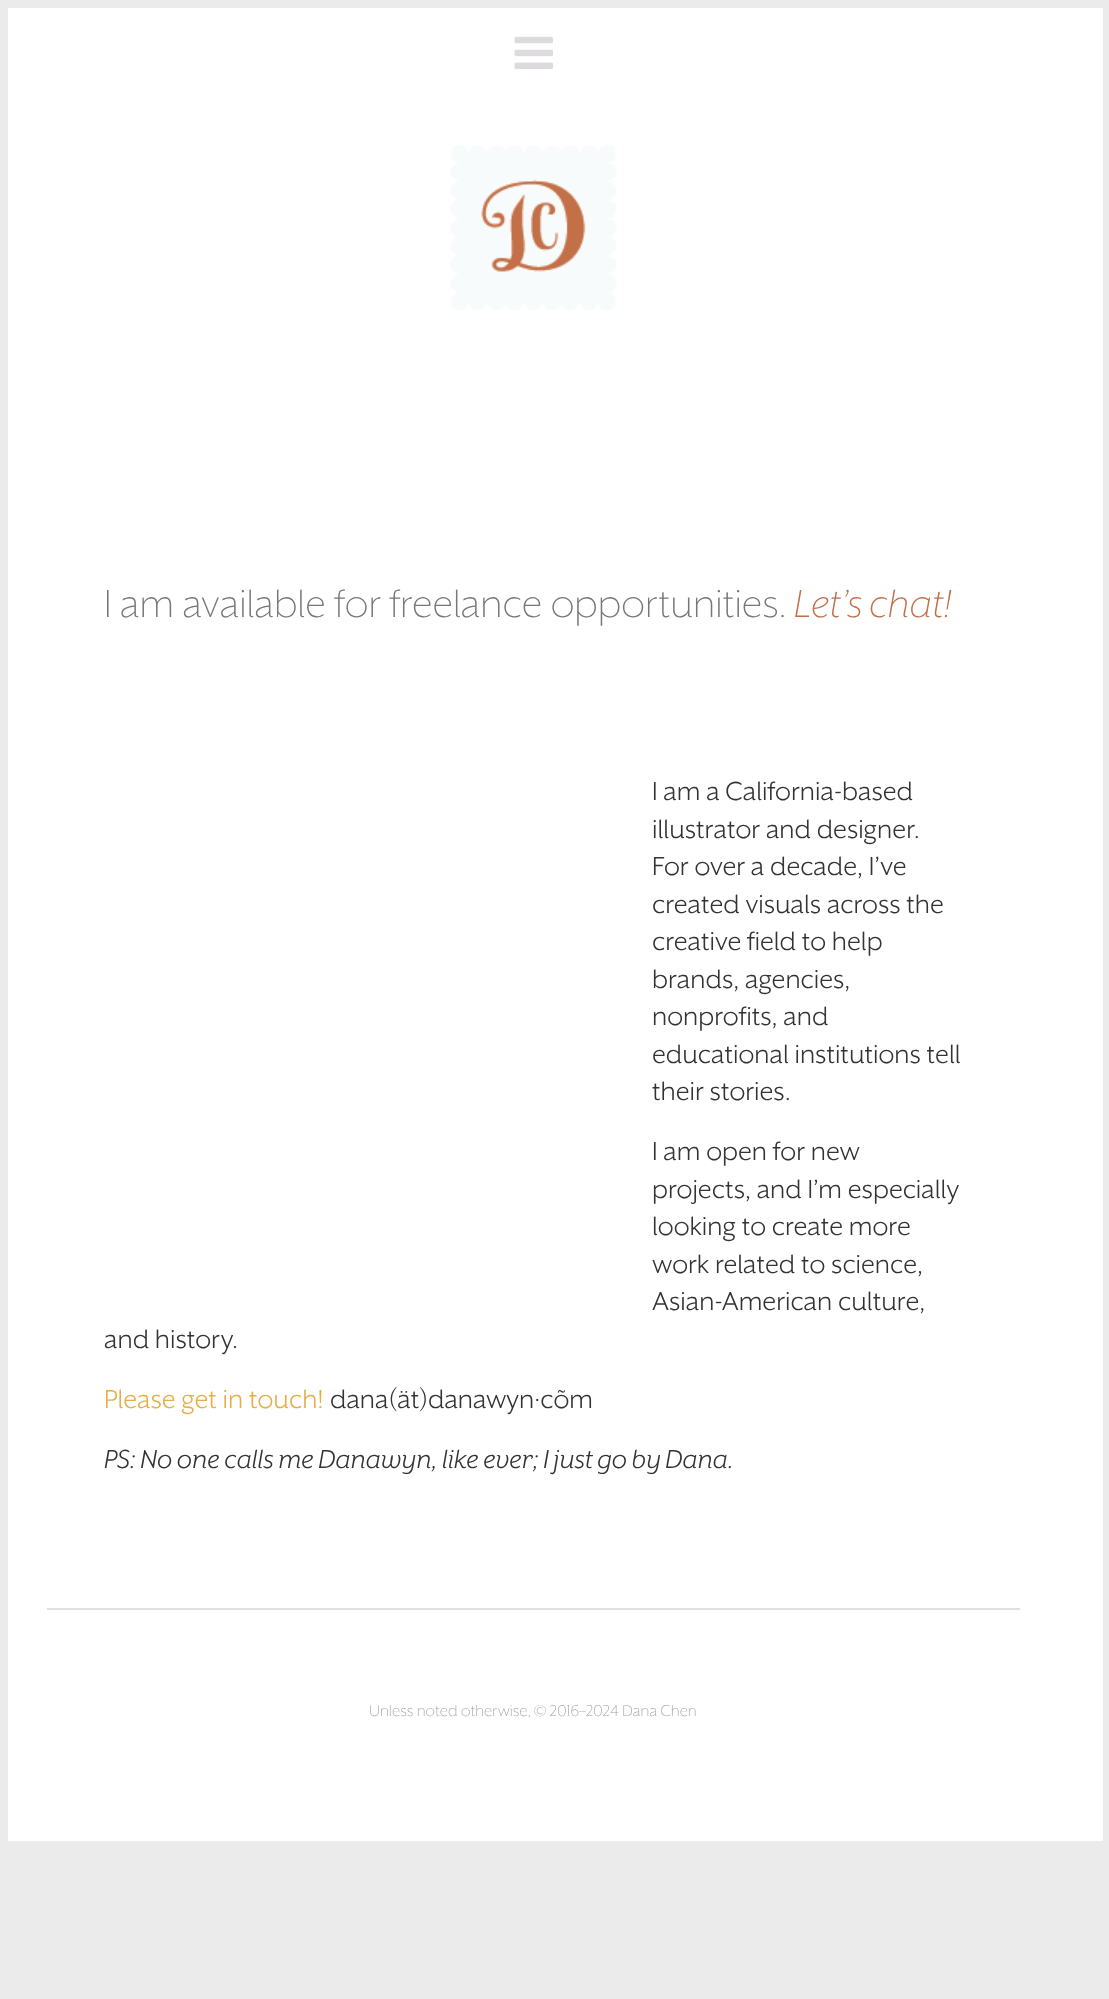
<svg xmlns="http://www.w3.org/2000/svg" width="1109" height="1999">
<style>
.a{font:300 45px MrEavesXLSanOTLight;fill:#777}
.b{font:italic 300 45px MrEavesXLSanOTLight;fill:#c16f48}
.c{font:30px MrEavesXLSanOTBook;fill:#333}
.d{font:30px MrEavesXLSanOTBook;fill:#e5ae47}
.e{font:italic 30px MrEavesXLSanOTBook;fill:#333}
.f{font:300 18px MrEavesXLSanOTLight;fill:#a0a0a0}
</style>
<rect width="100%" height="100%" fill="#ebebeb"/>
<path fill="#fff" d="M8 8h1095v1833H8z"/>
<image href="1.png" x="514" y="36" width="39" height="33"/>
<image href="2.png" x="450" y="144" width="167" height="167"/>
<path fill="#e0e0e0" d="M47 1608h973v2H47z"/>
<text class="a" x="104" y="617">I am available for freelance opportunities.</text>
<text class="b" x="794" y="617">Let’s chat!</text>
<text class="c" x="652" y="800">I am a California-based</text>
<text class="c" x="652" y="838">illustrator and designer.</text>
<text class="c" x="652" y="875">For over a decade, I’ve</text>
<text class="c" x="652" y="913">created visuals across the</text>
<text class="c" x="652" y="950">creative field to help</text>
<text class="c" x="652" y="988">brands, agencies,</text>
<text class="c" x="652" y="1025">nonprofits, and</text>
<text class="c" x="652" y="1063">educational institutions tell</text>
<text class="c" x="652" y="1100">their stories.</text>
<text class="c" x="652" y="1160">I am open for new</text>
<text class="c" x="652" y="1198">projects, and I’m especially</text>
<text class="c" x="652" y="1235">looking to create more</text>
<text class="c" x="652" y="1273">work related to science,</text>
<text class="c" x="652" y="1310">Asian-American culture,</text>
<text class="c" x="104" y="1348">and history.</text>
<text class="d" x="104" y="1408">Please get in touch!</text>
<text class="c" x="330" y="1408">dana(ät)danawyn·cõm</text>
<text class="e" x="104" y="1468">PS: No one calls me Danawyn, like ever; I just go by Dana.</text>
<text class="f" x="369" y="1716">Unless noted otherwise, © 2016–2024 Dana Chen</text>
</svg>
